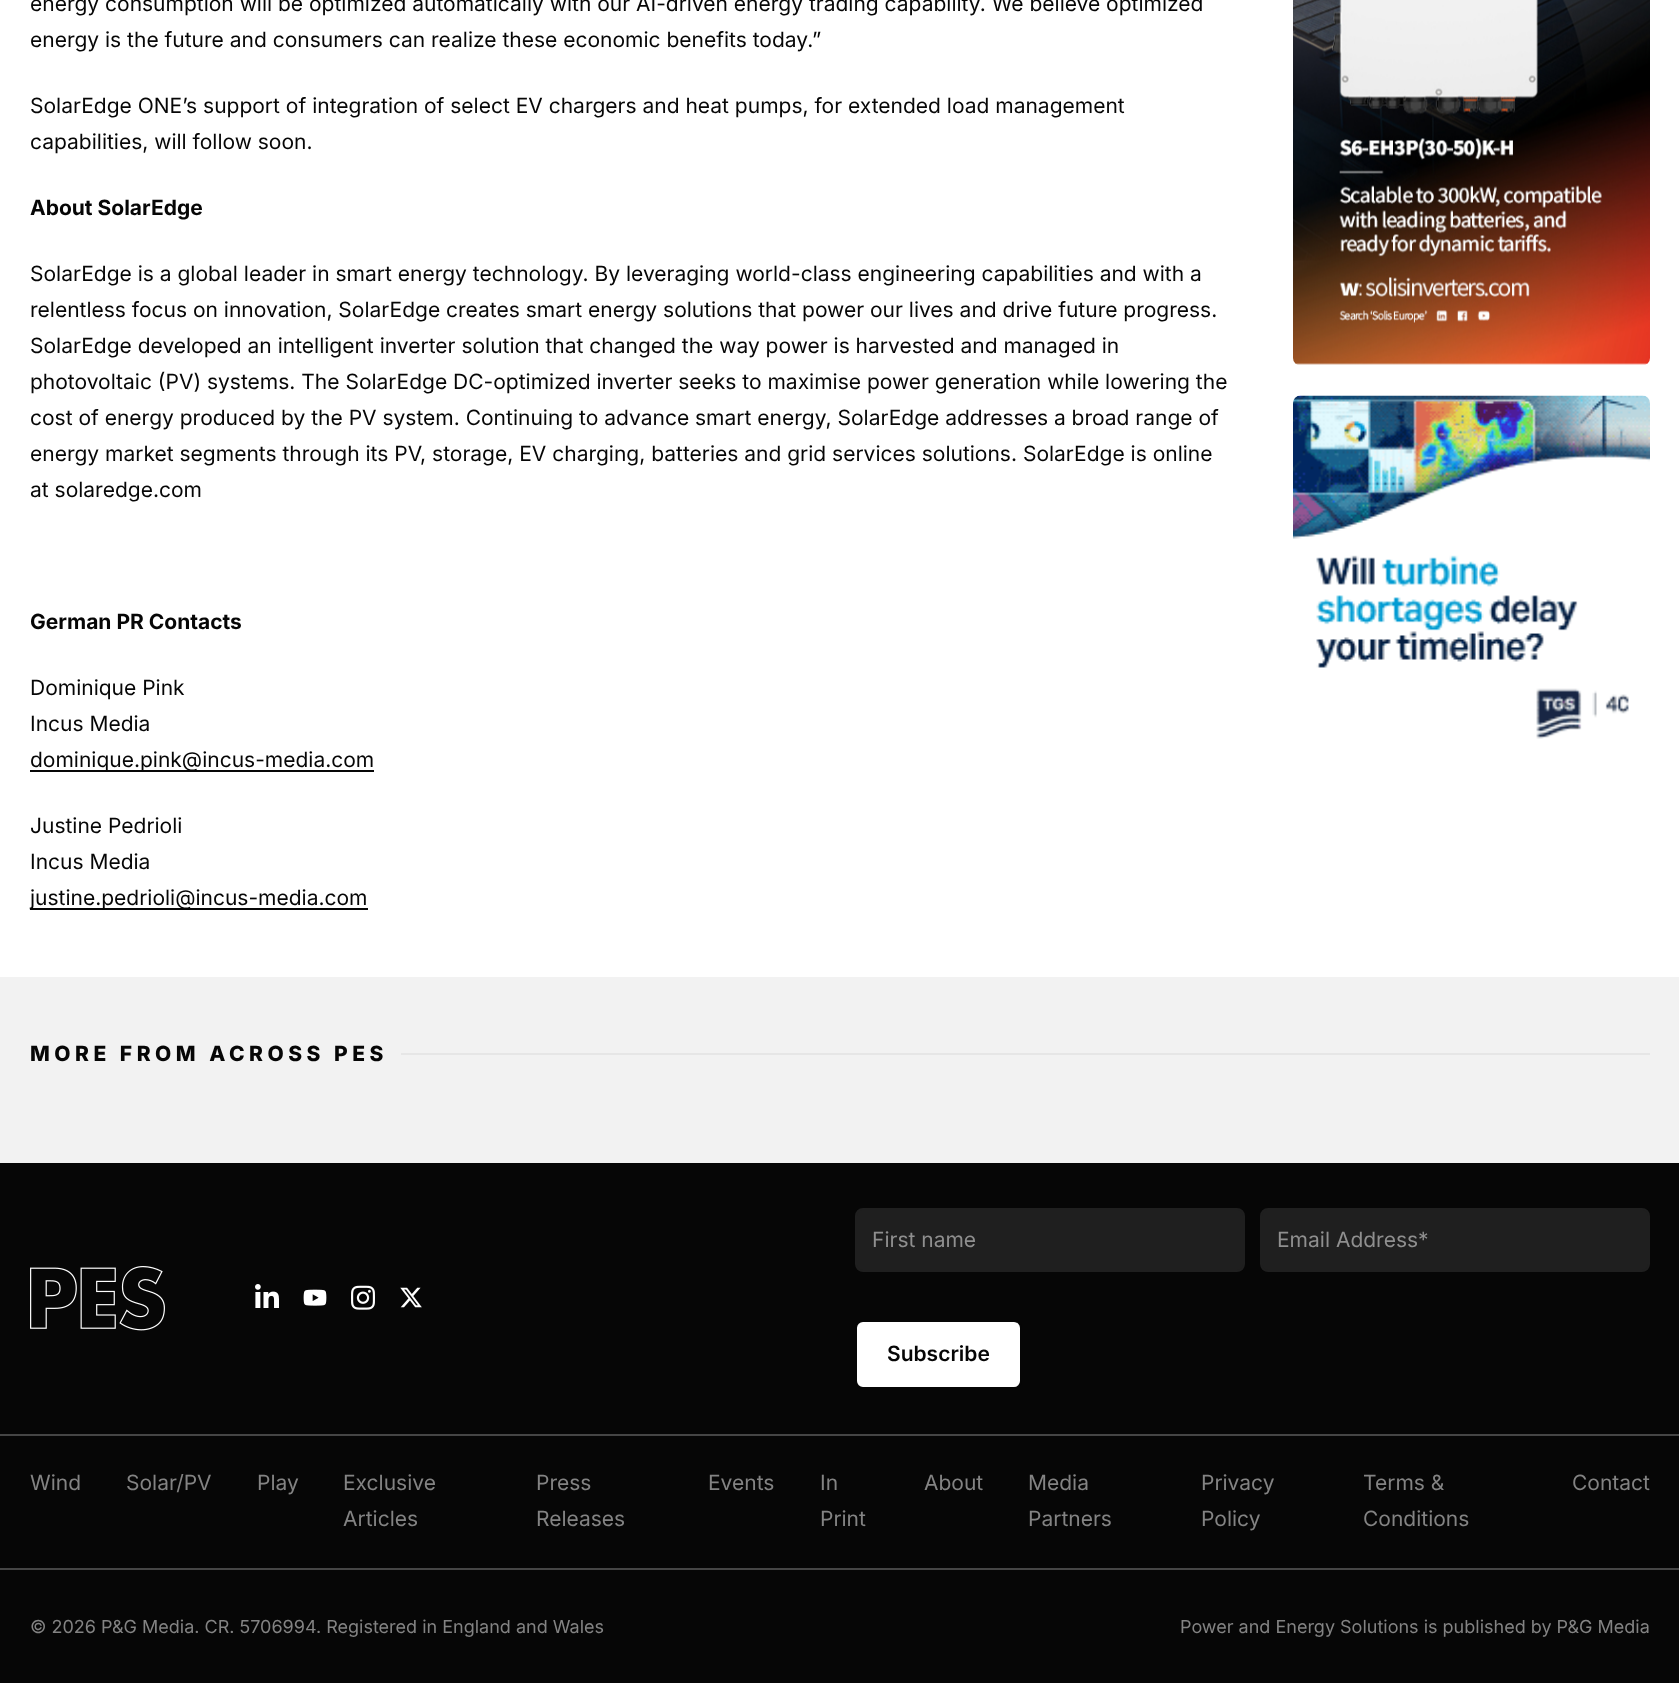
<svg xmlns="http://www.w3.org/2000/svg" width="1679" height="1683">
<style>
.a{font:21px Inter;fill:#060606}
.b{font:bold 21px Inter;fill:#060606}
.c{font:800 21px Inter;letter-spacing:4.5px;fill:#060606}
.d{font:21px Inter;fill:#8f8f8f}
.e{font:600 21px Inter;fill:#060606}
.f{font:21px Inter;fill:#838383}
.g{font:18px Inter;fill:#838383}
</style>
<rect width="100%" height="100%" fill="#fff"/>
<path fill="#060606" d="M30 770h344v2H30z"/>
<path fill="#060606" d="M30 908h338v2H30z"/>
<image href="1.png" x="1293" y="0" width="357" height="365"/>
<image href="2.png" x="1293" y="395" width="357" height="344"/>
<path fill="#f2f2f2" d="M0 977h1679v186H0z"/>
<path fill="#e6e6e6" d="M401 1053h1249v2H401z"/>
<path fill="#060606" d="M0 1163h1679v520H0z"/>
<image href="3.png" x="30" y="1266" width="135" height="65"/>
<image href="4.png" x="255" y="1284" width="24" height="24"/>
<image href="5.png" x="303" y="1289" width="24" height="17"/>
<image href="6.png" x="351" y="1285" width="24" height="25"/>
<image href="7.png" x="400" y="1287" width="22" height="21"/>
<rect fill="#1f1f1f" stroke="#1f1f1f" stroke-width="2" x="856" y="1209" width="388" height="62" rx="7"/>
<rect fill="#1f1f1f" stroke="#1f1f1f" stroke-width="2" x="1261" y="1209" width="388" height="62" rx="7"/>
<rect fill="#fff" stroke="#060606" stroke-width="2" x="856" y="1321" width="165" height="67" rx="7"/>
<path fill="#454545" d="M0 1434h1679v2H0z"/>
<path fill="#454545" d="M0 1568h1679v2H0z"/>
<text class="a" x="30" y="11">energy consumption will be optimized automatically with our AI-driven energy trading capability. We believe optimized</text>
<text class="a" x="30" y="47">energy is the future and consumers can realize these economic benefits today.”</text>
<text class="a" x="30" y="113">SolarEdge ONE’s support of integration of select EV chargers and heat pumps, for extended load management</text>
<text class="a" x="30" y="149">capabilities, will follow soon.</text>
<text class="b" x="30" y="215">About SolarEdge</text>
<text class="a" x="30" y="281">SolarEdge is a global leader in smart energy technology. By leveraging world-class engineering capabilities and with a</text>
<text class="a" x="30" y="317">relentless focus on innovation, SolarEdge creates smart energy solutions that power our lives and drive future progress.</text>
<text class="a" x="30" y="353">SolarEdge developed an intelligent inverter solution that changed the way power is harvested and managed in</text>
<text class="a" x="30" y="389">photovoltaic (PV) systems. The SolarEdge DC-optimized inverter seeks to maximise power generation while lowering the</text>
<text class="a" x="30" y="425">cost of energy produced by the PV system. Continuing to advance smart energy, SolarEdge addresses a broad range of</text>
<text class="a" x="30" y="461">energy market segments through its PV, storage, EV charging, batteries and grid services solutions. SolarEdge is online</text>
<text class="a" x="30" y="497">at solaredge.com</text>
<text class="b" x="30" y="629">German PR Contacts</text>
<text class="a" x="30" y="695">Dominique Pink</text>
<text class="a" x="30" y="731">Incus Media</text>
<text class="a" x="30" y="767">dominique.pink@incus-media.com</text>
<text class="a" x="30" y="833">Justine Pedrioli</text>
<text class="a" x="30" y="869">Incus Media</text>
<text class="a" x="30" y="905">justine.pedrioli@incus-media.com</text>
<text class="c" x="30" y="1061">MORE FROM ACROSS PES</text>
<text class="d" x="872" y="1247">First name</text>
<text class="d" x="1277" y="1247">Email Address*</text>
<text class="e" x="887" y="1361">Subscribe</text>
<text class="f" x="30" y="1490">Wind</text>
<text class="f" x="126" y="1490">Solar/PV</text>
<text class="f" x="257" y="1490">Play</text>
<text class="f" x="343" y="1490">Exclusive</text>
<text class="f" x="343" y="1526">Articles</text>
<text class="f" x="536" y="1490">Press</text>
<text class="f" x="536" y="1526">Releases</text>
<text class="f" x="708" y="1490">Events</text>
<text class="f" x="820" y="1490">In</text>
<text class="f" x="820" y="1526">Print</text>
<text class="f" x="924" y="1490">About</text>
<text class="f" x="1028" y="1490">Media</text>
<text class="f" x="1028" y="1526">Partners</text>
<text class="f" x="1201" y="1490">Privacy</text>
<text class="f" x="1201" y="1526">Policy</text>
<text class="f" x="1363" y="1490">Terms &amp;</text>
<text class="f" x="1363" y="1526">Conditions</text>
<text class="f" x="1572" y="1490">Contact</text>
<text class="g" x="30" y="1633">© 2026 P&amp;G Media. CR. 5706994. Registered in England and Wales</text>
<text class="g" x="1180" y="1633">Power and Energy Solutions is published by P&amp;G Media</text>
</svg>
